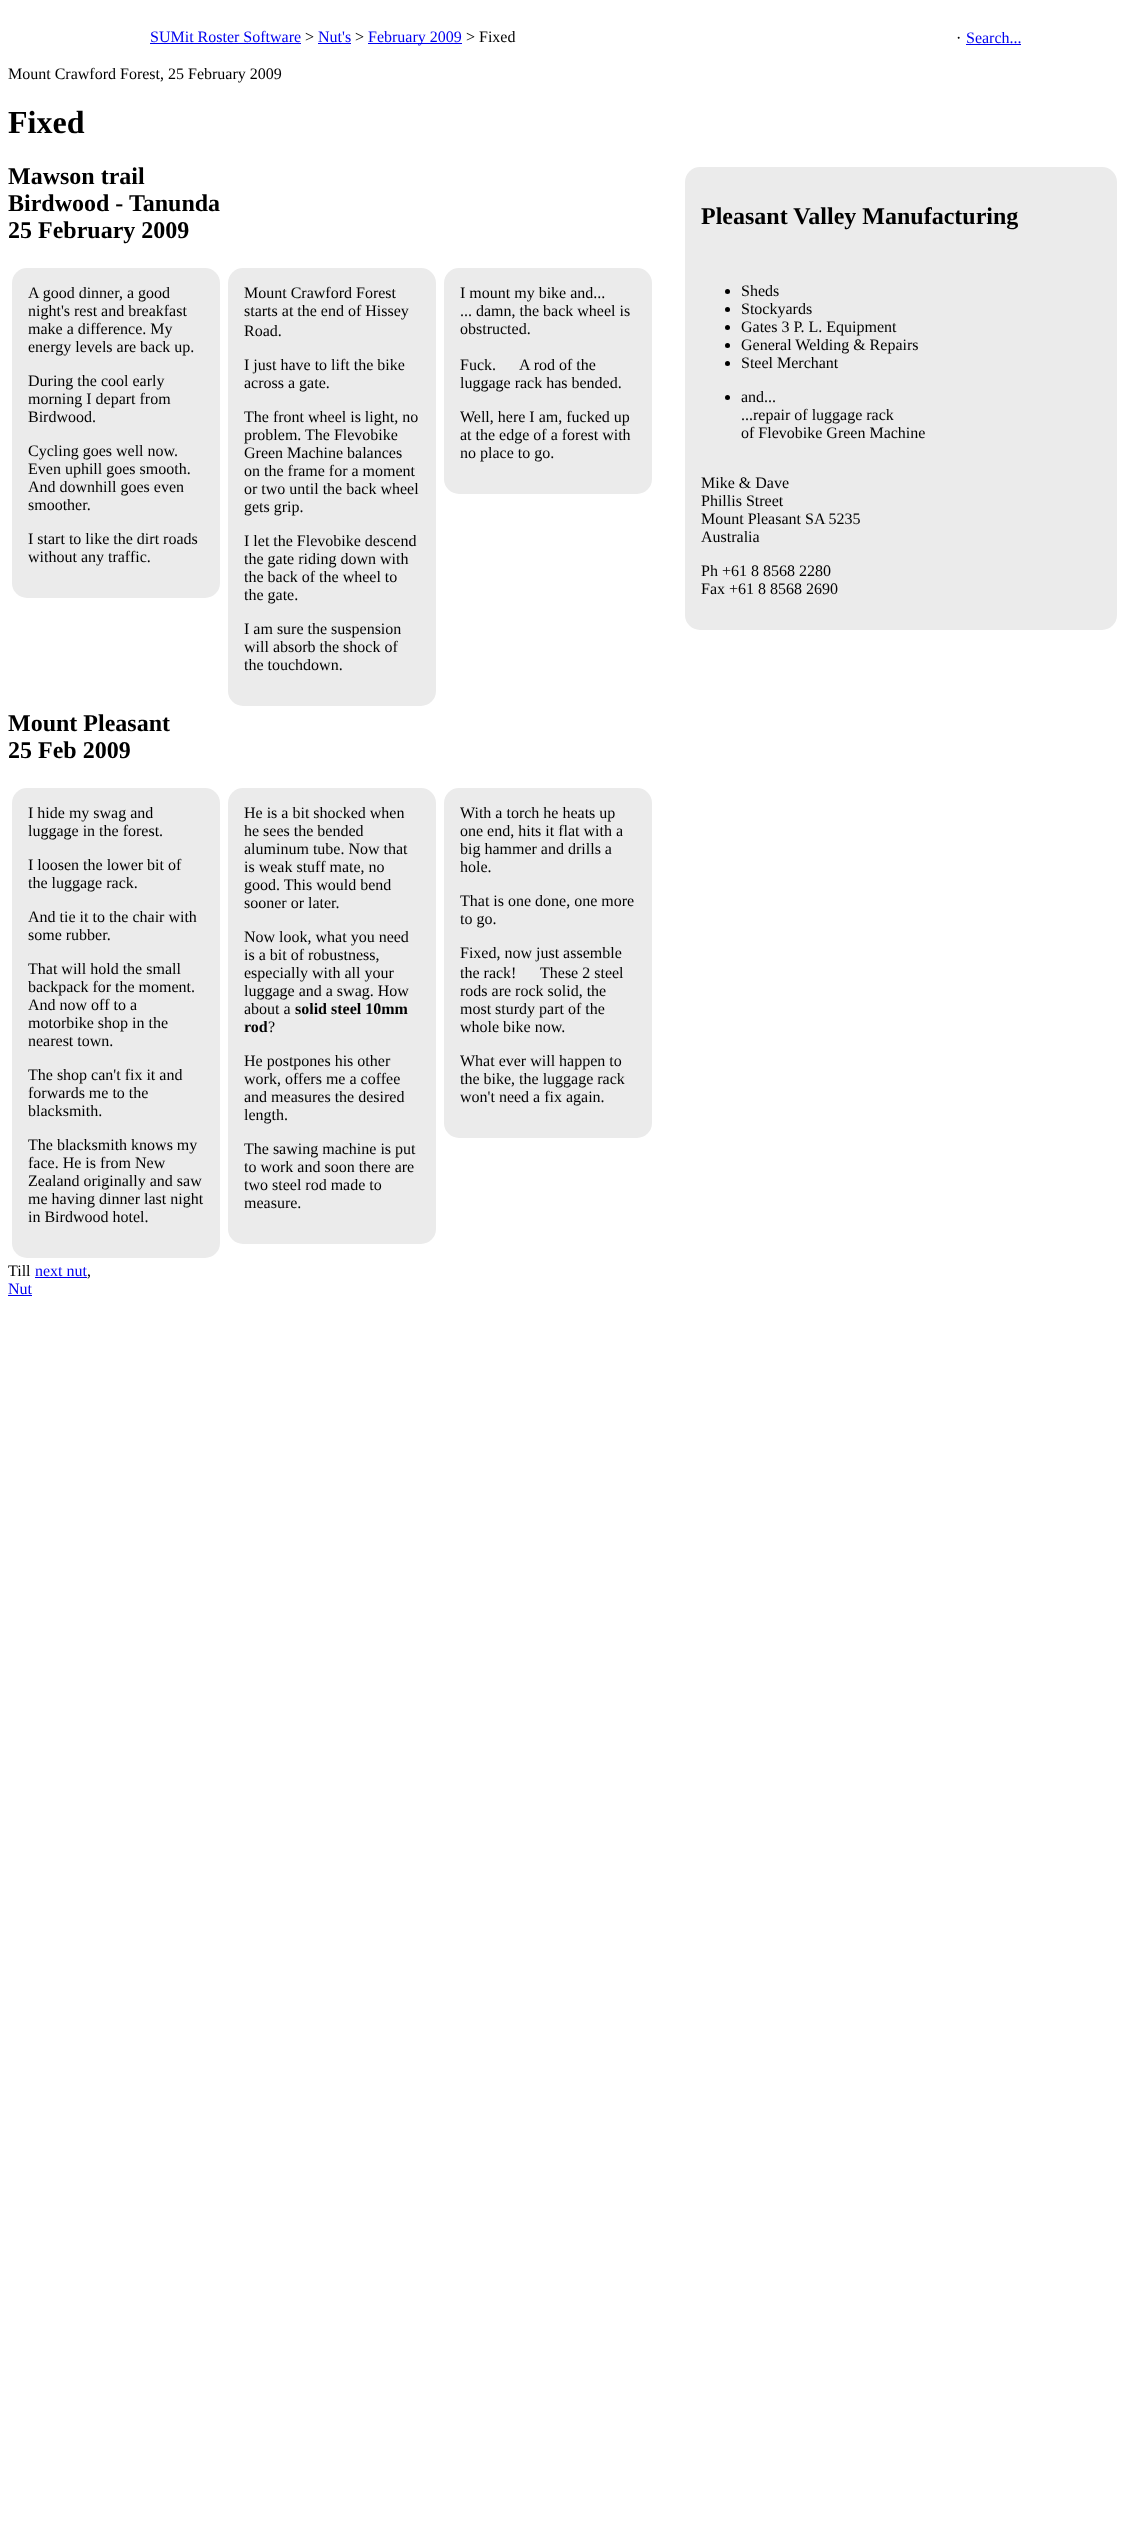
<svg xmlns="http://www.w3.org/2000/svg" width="1129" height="2532">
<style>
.a{font:16px Liberation Serif;fill:#00e}
.b{font:16px Liberation Serif;fill:#000}
.c{font:bold 32px Liberation Serif;fill:#000}
.d{font:bold 24px Liberation Serif;fill:#000}
.e{font:bold 16px Liberation Serif;fill:#000}
</style>
<rect width="100%" height="100%" fill="#fff"/>
<path fill="#00e" d="M150 43h151v1H150z"/>
<path fill="#00e" d="M318 43h33v1H318z"/>
<path fill="#00e" d="M368 43h94v1H368z"/>
<path fill="#00e" d="M966 44h55v1H966z"/>
<rect fill="#ebebeb" x="685" y="167" width="432" height="463" rx="15"/>
<circle fill="#000" cx="727.5" cy="291.5" r="2.5"/>
<circle fill="#000" cx="727.5" cy="309.5" r="2.5"/>
<circle fill="#000" cx="727.5" cy="327.5" r="2.5"/>
<circle fill="#000" cx="727.5" cy="345.5" r="2.5"/>
<circle fill="#000" cx="727.5" cy="363.5" r="2.5"/>
<circle fill="#000" cx="727.5" cy="397.5" r="2.5"/>
<rect fill="#ebebeb" x="12" y="268" width="208" height="330" rx="15"/>
<rect fill="#ebebeb" x="228" y="268" width="208" height="438" rx="15"/>
<rect fill="#ebebeb" x="444" y="268" width="208" height="226" rx="15"/>
<rect fill="#ebebeb" x="12" y="788" width="208" height="470" rx="15"/>
<rect fill="#ebebeb" x="228" y="788" width="208" height="456" rx="15"/>
<rect fill="#ebebeb" x="444" y="788" width="208" height="350" rx="15"/>
<path fill="#00e" d="M35 1277h52v1H35z"/>
<path fill="#00e" d="M8 1295h24v1H8z"/>
<text class="a" x="150" y="42">SUMit Roster Software</text>
<text class="b" x="305" y="42">&gt;</text>
<text class="a" x="318" y="42">Nut's</text>
<text class="b" x="355" y="42">&gt;</text>
<text class="a" x="368" y="42">February 2009</text>
<text class="b" x="466" y="42">&gt; Fixed</text>
<text class="b" x="956" y="43">·</text>
<text class="a" x="966" y="43">Search...</text>
<text class="b" x="8" y="79">Mount Crawford Forest, 25 February 2009</text>
<text class="c" x="8" y="133">Fixed</text>
<text class="d" x="8" y="184">Mawson trail</text>
<text class="d" x="8" y="211">Birdwood - Tanunda</text>
<text class="d" x="8" y="238">25 February 2009</text>
<text class="d" x="701" y="224">Pleasant Valley Manufacturing</text>
<text class="b" x="741" y="296">Sheds</text>
<text class="b" x="741" y="314">Stockyards</text>
<text class="b" x="741" y="332">Gates 3 P. L. Equipment</text>
<text class="b" x="741" y="350">General Welding &amp; Repairs</text>
<text class="b" x="741" y="368">Steel Merchant</text>
<text class="b" x="741" y="402">and...</text>
<text class="b" x="741" y="420">...repair of luggage rack</text>
<text class="b" x="741" y="438">of Flevobike Green Machine</text>
<text class="b" x="701" y="488">Mike &amp; Dave</text>
<text class="b" x="701" y="506">Phillis Street</text>
<text class="b" x="701" y="524">Mount Pleasant SA 5235</text>
<text class="b" x="701" y="542">Australia</text>
<text class="b" x="701" y="576">Ph +61 8 8568 2280</text>
<text class="b" x="701" y="594">Fax +61 8 8568 2690</text>
<text class="b" x="28" y="298">A good dinner, a good</text>
<text class="b" x="28" y="316">night's rest and breakfast</text>
<text class="b" x="28" y="334">make a difference. My</text>
<text class="b" x="28" y="352">energy levels are back up.</text>
<text class="b" x="28" y="386">During the cool early</text>
<text class="b" x="28" y="404">morning I depart from</text>
<text class="b" x="28" y="422">Birdwood.</text>
<text class="b" x="28" y="456">Cycling goes well now.</text>
<text class="b" x="28" y="474">Even uphill goes smooth.</text>
<text class="b" x="28" y="492">And downhill goes even</text>
<text class="b" x="28" y="510">smoother.</text>
<text class="b" x="28" y="544">I start to like the dirt roads</text>
<text class="b" x="28" y="562">without any traffic.</text>
<text class="b" x="244" y="298">Mount Crawford Forest</text>
<text class="b" x="244" y="316">starts at the end of Hissey</text>
<text class="b" x="244" y="336">Road.</text>
<text class="b" x="244" y="370">I just have to lift the bike</text>
<text class="b" x="244" y="388">across a gate.</text>
<text class="b" x="244" y="422">The front wheel is light, no</text>
<text class="b" x="244" y="440">problem. The Flevobike</text>
<text class="b" x="244" y="458">Green Machine balances</text>
<text class="b" x="244" y="476">on the frame for a moment</text>
<text class="b" x="244" y="494">or two until the back wheel</text>
<text class="b" x="244" y="512">gets grip.</text>
<text class="b" x="244" y="546">I let the Flevobike descend</text>
<text class="b" x="244" y="564">the gate riding down with</text>
<text class="b" x="244" y="582">the back of the wheel to</text>
<text class="b" x="244" y="600">the gate.</text>
<text class="b" x="244" y="634">I am sure the suspension</text>
<text class="b" x="244" y="652">will absorb the shock of</text>
<text class="b" x="244" y="670">the touchdown.</text>
<text class="b" x="460" y="298">I mount my bike and...</text>
<text class="b" x="460" y="316">... damn, the back wheel is</text>
<text class="b" x="460" y="334">obstructed.</text>
<text class="b" x="460" y="370">Fuck.</text>
<text class="b" x="519" y="370">A rod of the</text>
<text class="b" x="460" y="388">luggage rack has bended.</text>
<text class="b" x="460" y="422">Well, here I am, fucked up</text>
<text class="b" x="460" y="440">at the edge of a forest with</text>
<text class="b" x="460" y="458">no place to go.</text>
<text class="d" x="8" y="731">Mount Pleasant</text>
<text class="d" x="8" y="758">25 Feb 2009</text>
<text class="b" x="28" y="818">I hide my swag and</text>
<text class="b" x="28" y="836">luggage in the forest.</text>
<text class="b" x="28" y="870">I loosen the lower bit of</text>
<text class="b" x="28" y="888">the luggage rack.</text>
<text class="b" x="28" y="922">And tie it to the chair with</text>
<text class="b" x="28" y="940">some rubber.</text>
<text class="b" x="28" y="974">That will hold the small</text>
<text class="b" x="28" y="992">backpack for the moment.</text>
<text class="b" x="28" y="1010">And now off to a</text>
<text class="b" x="28" y="1028">motorbike shop in the</text>
<text class="b" x="28" y="1046">nearest town.</text>
<text class="b" x="28" y="1080">The shop can't fix it and</text>
<text class="b" x="28" y="1098">forwards me to the</text>
<text class="b" x="28" y="1116">blacksmith.</text>
<text class="b" x="28" y="1150">The blacksmith knows my</text>
<text class="b" x="28" y="1168">face. He is from New</text>
<text class="b" x="28" y="1186">Zealand originally and saw</text>
<text class="b" x="28" y="1204">me having dinner last night</text>
<text class="b" x="28" y="1222">in Birdwood hotel.</text>
<text class="b" x="244" y="818">He is a bit shocked when</text>
<text class="b" x="244" y="836">he sees the bended</text>
<text class="b" x="244" y="854">aluminum tube. Now that</text>
<text class="b" x="244" y="872">is weak stuff mate, no</text>
<text class="b" x="244" y="890">good. This would bend</text>
<text class="b" x="244" y="908">sooner or later.</text>
<text class="b" x="244" y="942">Now look, what you need</text>
<text class="b" x="244" y="960">is a bit of robustness,</text>
<text class="b" x="244" y="978">especially with all your</text>
<text class="b" x="244" y="996">luggage and a swag. How</text>
<text class="b" x="244" y="1014">about a</text>
<text class="e" x="295" y="1014">solid steel 10mm</text>
<text class="e" x="244" y="1032">rod</text>
<text class="b" x="268" y="1032">?</text>
<text class="b" x="244" y="1066">He postpones his other</text>
<text class="b" x="244" y="1084">work, offers me a coffee</text>
<text class="b" x="244" y="1102">and measures the desired</text>
<text class="b" x="244" y="1120">length.</text>
<text class="b" x="244" y="1154">The sawing machine is put</text>
<text class="b" x="244" y="1172">to work and soon there are</text>
<text class="b" x="244" y="1190">two steel rod made to</text>
<text class="b" x="244" y="1208">measure.</text>
<text class="b" x="460" y="818">With a torch he heats up</text>
<text class="b" x="460" y="836">one end, hits it flat with a</text>
<text class="b" x="460" y="854">big hammer and drills a</text>
<text class="b" x="460" y="872">hole.</text>
<text class="b" x="460" y="906">That is one done, one more</text>
<text class="b" x="460" y="924">to go.</text>
<text class="b" x="460" y="958">Fixed, now just assemble</text>
<text class="b" x="460" y="978">the rack!</text>
<text class="b" x="540" y="978">These 2 steel</text>
<text class="b" x="460" y="996">rods are rock solid, the</text>
<text class="b" x="460" y="1014">most sturdy part of the</text>
<text class="b" x="460" y="1032">whole bike now.</text>
<text class="b" x="460" y="1066">What ever will happen to</text>
<text class="b" x="460" y="1084">the bike, the luggage rack</text>
<text class="b" x="460" y="1102">won't need a fix again.</text>
<text class="b" x="8" y="1276">Till</text>
<text class="a" x="35" y="1276">next nut</text>
<text class="b" x="87" y="1276">,</text>
<text class="a" x="8" y="1294">Nut</text>
</svg>
